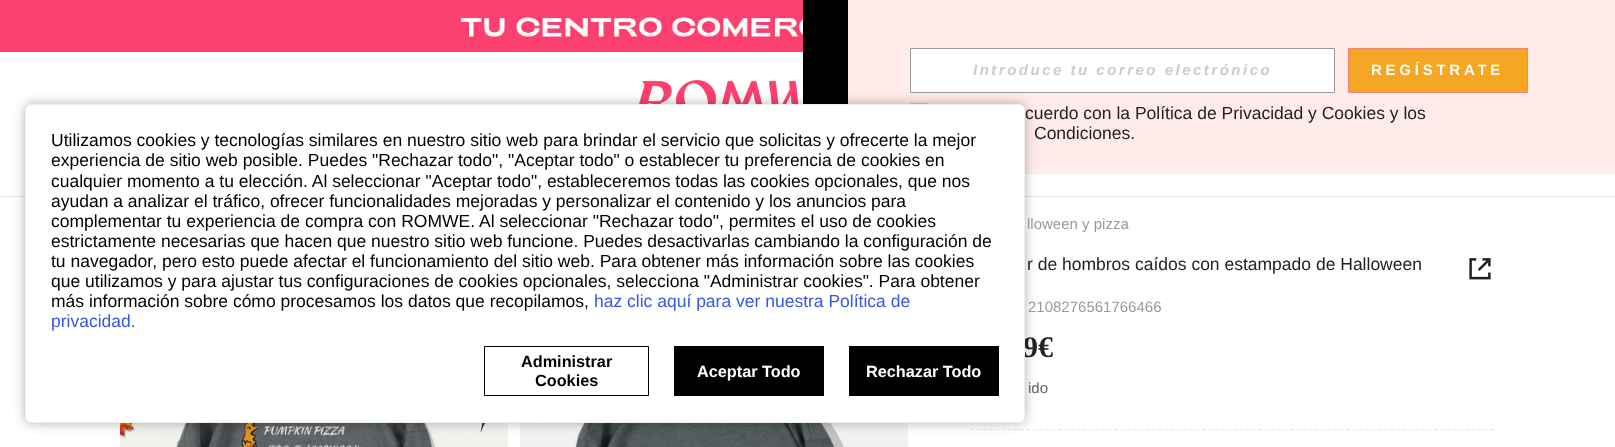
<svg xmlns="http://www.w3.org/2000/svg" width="1615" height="447">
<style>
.a{font:italic bold 15px Liberation Sans;letter-spacing:2.5px;fill:#ccc}
.b{font:bold 15px Liberation Sans;letter-spacing:3.75px;fill:#fff}
.c{font:17.5px Liberation Sans;fill:#222}
.d{font:15px Liberation Sans;fill:#999}
.e{font:bold 30px Liberation Serif;fill:#222}
.f{font:bold 16.25px Liberation Sans;fill:#fff}
.g{font:bold 16.25px Liberation Sans;fill:#000}
.h{font:17.5px Liberation Sans;fill:#3658e2}
.i{font:17.5px Liberation Sans;fill:#000}
.j{font:15px Liberation Sans;fill:#666}
</style>
<rect width="100%" height="100%" fill="#fff"/>
<path fill="#000" d="M803 0h45v104H803z"/>
<path fill="#ffebe9" d="M848 0h767v174H848z"/>
<path fill="#fff" stroke="#999" d="M910.5 48.5h424v44H910.5z"/>
<path fill="#f5a623" stroke="#f08679" d="M1348.5 48.5h179v44H1348.5z"/>
<path fill="none" stroke="#ccc" d="M910.5 103.5h17v19H910.5z"/>
<image href="2.png" x="639" y="80" width="164" height="24"/>
<path fill="#e5e5e5" d="M0 196h1615v1H0z"/>
<path fill="none" stroke="#e5e5e5" stroke-width="1.2" stroke-dasharray="3.75 2.52" d="M970 429.5h525"/>
<image href="4.png" x="120" y="423" width="388" height="24"/>
<image href="5.png" x="520" y="423" width="388" height="24"/>
<rect fill="#0000004d" filter="blur(6px)" x="25" y="104" width="1000" height="319" rx="6"/>
<image href="1.png" x="0" y="0" width="803" height="52"/>
<image href="3.png" x="1469" y="258" width="22" height="22"/>
<text class="a" x="973" y="75">Introduce tu correo electrónico</text>
<text class="b" x="1371" y="75">REGÍSTRATE</text>
<text class="c" x="1025" y="119">cuerdo con la Política de Privacidad y Cookies y los</text>
<text class="c" x="1034" y="139">Condiciones.</text>
<text class="d" x="1027" y="229">lloween y pizza</text>
<text class="c" x="1027" y="270">r de hombros caídos con estampado de Halloween</text>
<text class="d" x="1028" y="312">2108276561766466</text>
<text class="e" x="1023" y="357">9€</text>
<rect fill="#fff" stroke="#eee" x="25.5" y="104.5" width="999" height="318" rx="5.5"/>
<path fill="#000" d="M849 346h150v50H849z"/>
<text class="f" x="866" y="377">Rechazar Todo</text>
<path fill="#000" d="M674 346h150v50H674z"/>
<text class="f" x="697" y="377">Aceptar Todo</text>
<path fill="none" stroke="#000" d="M484.5 346.5h164v49H484.5z"/>
<text class="g" x="535" y="386">Cookies</text>
<text class="g" x="521" y="367">Administrar</text>
<text class="h" x="51" y="327">privacidad.</text>
<text class="h" x="594" y="307">haz clic aquí para ver nuestra Política de</text>
<text class="i" x="51" y="307">más información sobre cómo procesamos los datos que recopilamos,</text>
<text class="i" x="51" y="287">que utilizamos y para ajustar tus configuraciones de cookies opcionales, selecciona "Administrar cookies". Para obtener</text>
<text class="i" x="51" y="267">tu navegador, pero esto puede afectar el funcionamiento del sitio web. Para obtener más información sobre las cookies</text>
<text class="i" x="51" y="247">estrictamente necesarias que hacen que nuestro sitio web funcione. Puedes desactivarlas cambiando la configuración de</text>
<text class="i" x="51" y="227">complementar tu experiencia de compra con ROMWE. Al seleccionar "Rechazar todo", permites el uso de cookies</text>
<text class="i" x="51" y="207">ayudan a analizar el tráfico, ofrecer funcionalidades mejoradas y personalizar el contenido y los anuncios para</text>
<text class="i" x="51" y="187">cualquier momento a tu elección. Al seleccionar "Aceptar todo", estableceremos todas las cookies opcionales, que nos</text>
<text class="i" x="51" y="166">experiencia de sitio web posible. Puedes "Rechazar todo", "Aceptar todo" o establecer tu preferencia de cookies en</text>
<text class="i" x="51" y="146">Utilizamos cookies y tecnologías similares en nuestro sitio web para brindar el servicio que solicitas y ofrecerte la mejor</text>
<text class="j" x="1028" y="393">ido</text>
</svg>
